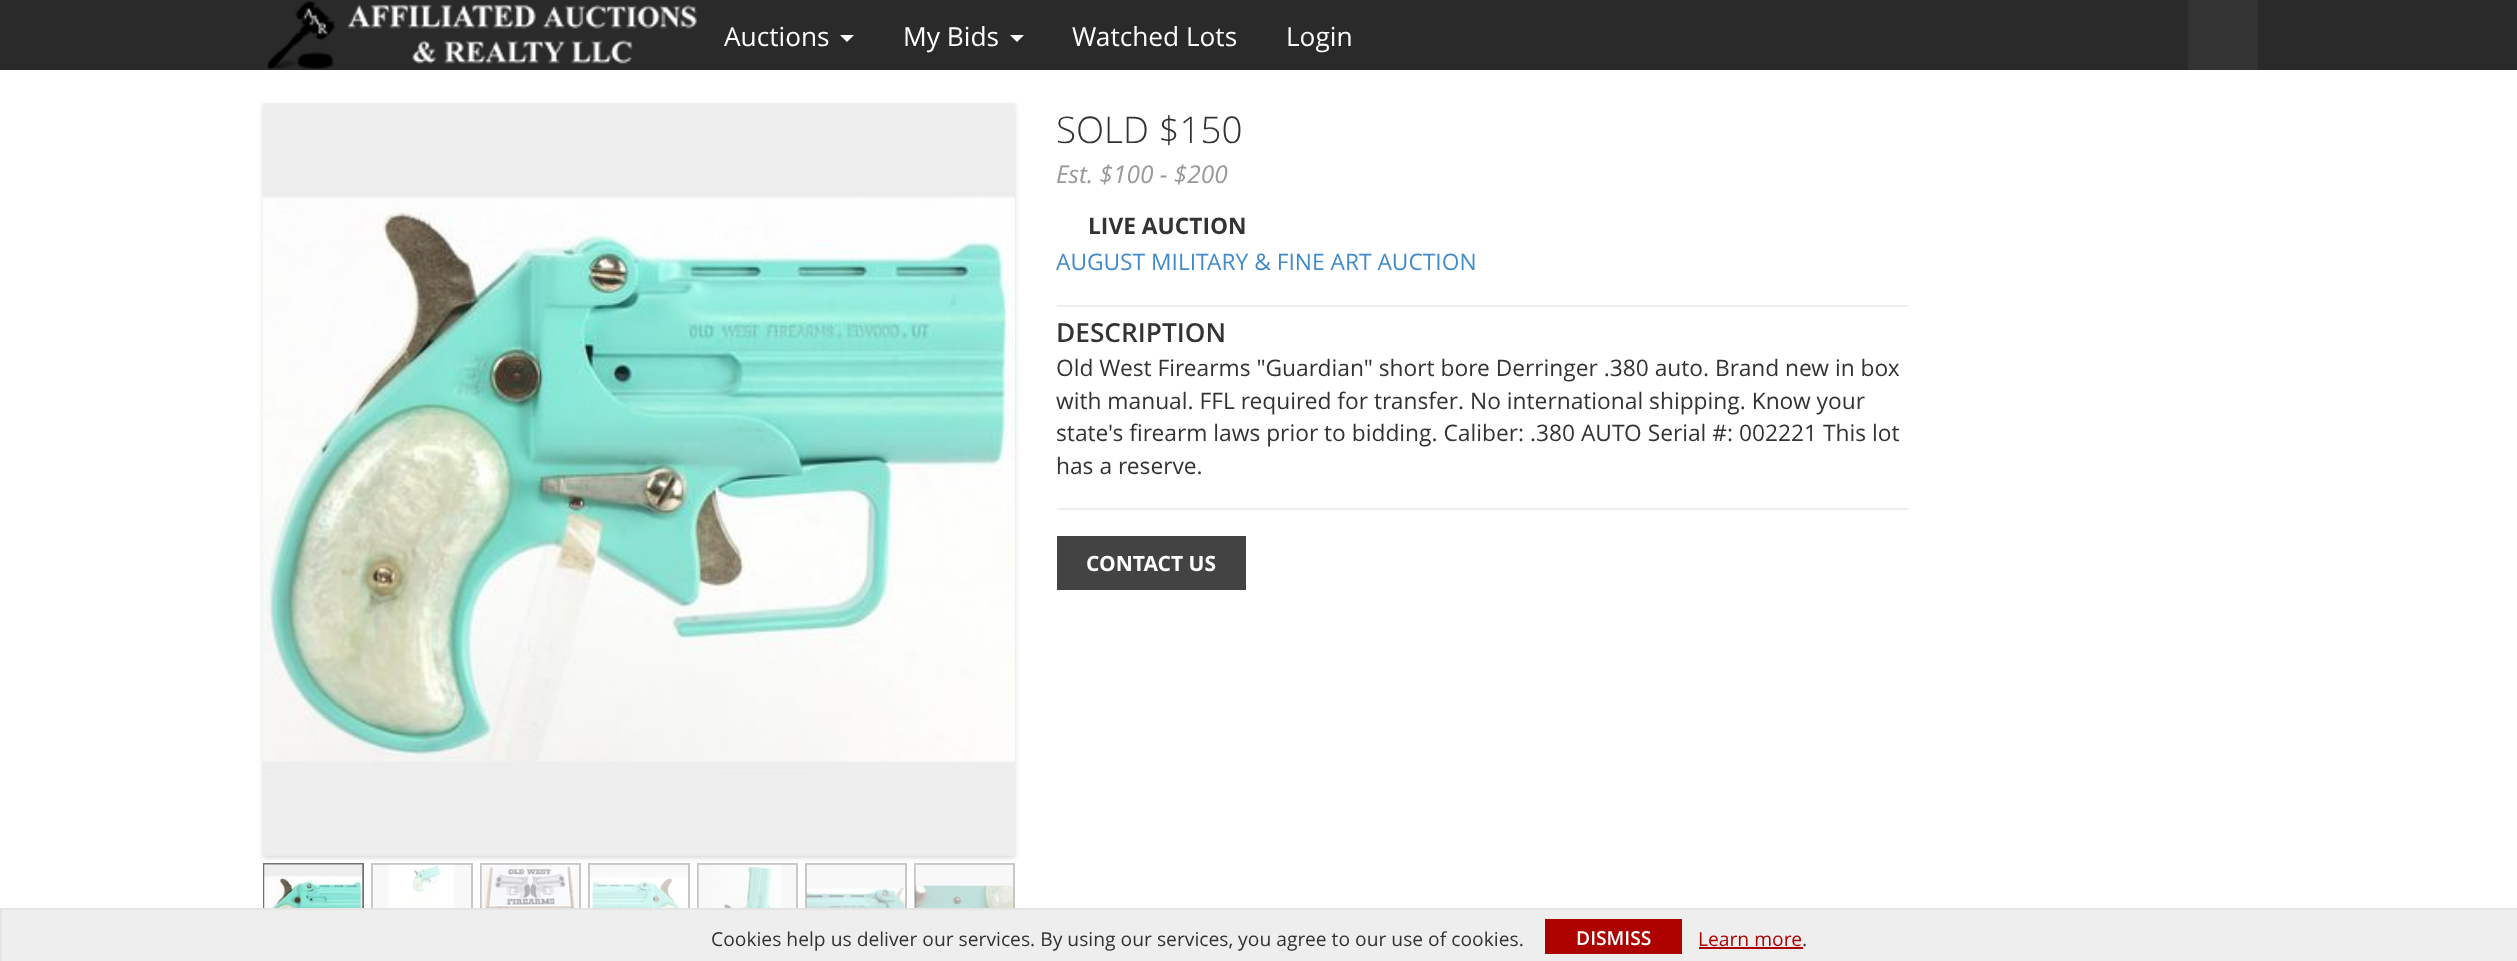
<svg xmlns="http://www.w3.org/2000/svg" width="2517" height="961">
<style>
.a{font:26.25px Open Sans;fill:#fff}
.b{font:300 36.75px Open Sans;fill:#333}
.c{font:italic 24.5px Open Sans;fill:#999}
.d{font:bold 22.75px Open Sans;fill:#333}
.e{font:22.75px Open Sans;fill:#428bca}
.f{font:600 26.25px Open Sans;fill:#333}
.g{font:22.75px Open Sans;fill:#333}
.h{font:bold 21px Open Sans;fill:#fff}
.i{font:19.25px Open Sans;fill:#333}
.j{font:600 19.25px Open Sans;fill:#fff}
.k{font:19.25px Open Sans;fill:#ad0200}
</style>
<rect width="100%" height="100%" fill="#fff"/>
<path fill="#2a2a2a" d="M0 0h2517v70H0z"/>
<image href="1.png" x="267" y="1" width="430" height="68"/>
<path fill="#fff" d="M840 35h14l-7 7z"/>
<path fill="#fff" d="M1010 35h14l-7 7z"/>
<path fill="#333" d="M2188 0h70v70H2188z"/>
<path fill="#dad9d7" filter="blur(2.5px)" d="M263 105h752v753H263z"/>
<image href="2.png" x="262" y="103" width="753" height="753"/>
<path fill="none" stroke="#717171" stroke-width="2" d="M264 864h99v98H264z"/>
<path fill="none" stroke="#c6c6c6" stroke-width="2" d="M372 864h100v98H372z"/>
<path fill="none" stroke="#c6c6c6" stroke-width="2" d="M481 864h99v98H481z"/>
<path fill="none" stroke="#c6c6c6" stroke-width="2" d="M589 864h100v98H589z"/>
<path fill="none" stroke="#c6c6c6" stroke-width="2" d="M698 864h99v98H698z"/>
<path fill="none" stroke="#c6c6c6" stroke-width="2" d="M806 864h100v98H806z"/>
<path fill="none" stroke="#c6c6c6" stroke-width="2" d="M915 864h99v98H915z"/>
<image href="3.png" x="264" y="864" width="99" height="44"/>
<image href="4.png" x="372" y="864" width="99" height="44"/>
<image href="5.png" x="481" y="864" width="99" height="44"/>
<image href="6.png" x="589" y="864" width="99" height="44"/>
<image href="7.png" x="698" y="864" width="99" height="44"/>
<image href="8.png" x="806" y="864" width="99" height="44"/>
<image href="9.png" x="915" y="864" width="99" height="44"/>
<path fill="#eee" d="M1057 305h851v2H1057z"/>
<path fill="#eee" d="M1057 508h851v2H1057z"/>
<path fill="#434343" d="M1057 536h189v54H1057z"/>
<path fill="#eee" d="M2 910h2515v51H2z"/>
<path fill="#e4e4e4" d="M0 908h2517v2H0z"/>
<path fill="#e4e4e4" d="M0 908h2v53H0z"/>
<path fill="#ad0200" d="M1545 919h137v35H1545z"/>
<path fill="#ad0200" d="M1699 947h104v2H1699z"/>
<text class="a" x="724" y="46">Auctions</text>
<text class="a" x="903" y="46">My Bids</text>
<text class="a" x="1072" y="46">Watched Lots</text>
<text class="a" x="1286" y="46">Login</text>
<text class="b" x="1056" y="143">SOLD $150</text>
<text class="c" x="1056" y="183">Est. $100 - $200</text>
<text class="d" x="1088" y="234">LIVE AUCTION</text>
<text class="e" x="1056" y="270">AUGUST MILITARY &amp; FINE ART AUCTION</text>
<text class="f" x="1056" y="342">DESCRIPTION</text>
<text class="g" x="1056" y="376">Old West Firearms "Guardian" short bore Derringer .380 auto. Brand new in box</text>
<text class="g" x="1056" y="409">with manual. FFL required for transfer. No international shipping. Know your</text>
<text class="g" x="1056" y="441">state's firearm laws prior to bidding. Caliber: .380 AUTO Serial #: 002221 This lot</text>
<text class="g" x="1056" y="474">has a reserve.</text>
<text class="h" x="1086" y="571">CONTACT US</text>
<text class="i" x="711" y="946">Cookies help us deliver our services. By using our services, you agree to our use of cookies.</text>
<text class="j" x="1576" y="945">DISMISS</text>
<text class="k" x="1698" y="946">Learn more</text>
<text class="i" x="1802" y="946">.</text>
</svg>
